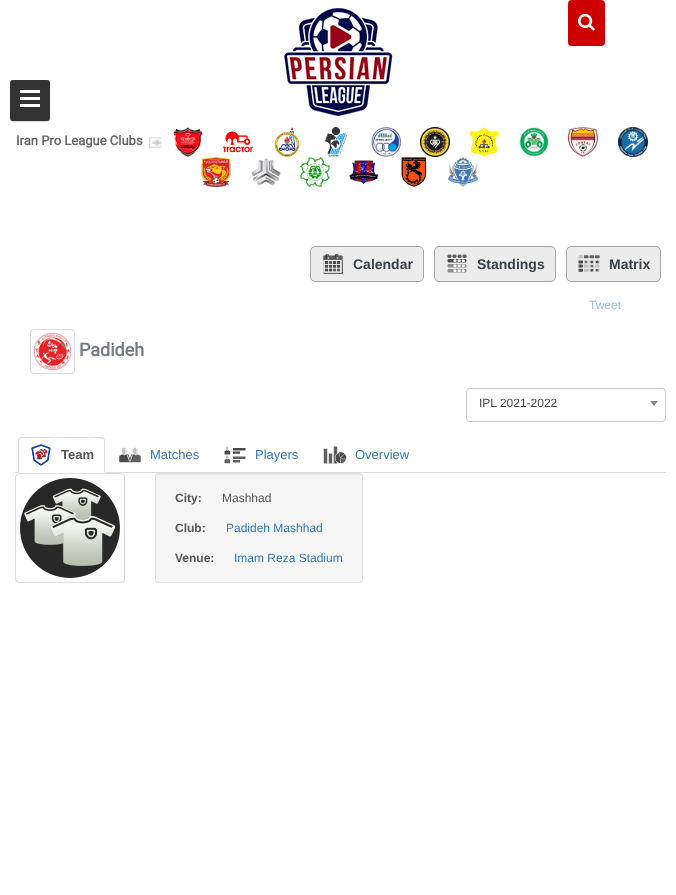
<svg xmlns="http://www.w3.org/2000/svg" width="676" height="895">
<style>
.a{font:bold 13px Roboto;fill:#666}
.b{font:bold 14px Liberation Sans;fill:#3a3f48}
.c{font:12px Liberation Sans;fill:#99bddb}
.d{font:bold 18px Roboto;fill:#757a83}
.e{font:12px Liberation Sans;fill:#444}
.f{font:bold 13px Liberation Sans;fill:#555}
.g{font:13px Liberation Sans;fill:#337ab7}
.h{font:bold 12px Liberation Sans;fill:#555}
.i{font:12px Liberation Sans;fill:#555}
.j{font:12px Liberation Sans;fill:#337ab7}
</style>
<rect width="100%" height="100%" fill="#fff"/>
<rect fill="#00000026" filter="blur(0.5px)" x="10" y="81" width="40" height="41" rx="3"/>
<rect fill="#333" x="10" y="80" width="40" height="41" rx="3"/>
<path fill="#fff" d="M20 90h20v3H20z"/>
<path fill="#fff" d="M20 97h20v3H20z"/>
<path fill="#fff" d="M20 104h20v3H20z"/>
<image href="1.png" x="284" y="8" width="109" height="108"/>
<rect fill="#c00" x="568" width="37" height="46" rx="4"/>
<image href="2.png" x="578" y="13" width="17" height="18"/>
<image href="3.png" x="149" y="137" width="14" height="11"/>
<image href="4.png" x="173" y="127" width="30" height="30"/>
<image href="5.png" x="223" y="131" width="30" height="22"/>
<image href="6.png" x="274" y="127" width="26" height="30"/>
<image href="7.png" x="325" y="127" width="22" height="30"/>
<image href="8.png" x="371" y="127" width="30" height="30"/>
<image href="9.png" x="420" y="127" width="30" height="30"/>
<image href="10.png" x="469" y="127" width="30" height="30"/>
<image href="11.png" x="519" y="127" width="30" height="30"/>
<image href="12.png" x="568" y="127" width="30" height="30"/>
<image href="13.png" x="618" y="127" width="30" height="30"/>
<image href="14.png" x="201" y="157" width="30" height="30"/>
<image href="15.png" x="251" y="158" width="30" height="28"/>
<image href="16.png" x="300" y="157" width="30" height="30"/>
<image href="17.png" x="349" y="160" width="30" height="24"/>
<image href="18.png" x="401" y="157" width="26" height="30"/>
<image href="19.png" x="448" y="157" width="30" height="30"/>
<rect fill="#ececec" stroke="#a7a7a7" x="310.5" y="246.5" width="113" height="35" rx="4.5"/>
<image href="20.png" x="323" y="254" width="20" height="20"/>
<rect fill="#ececec" stroke="#a7a7a7" x="434.5" y="246.5" width="121" height="35" rx="4.5"/>
<image href="21.png" x="447" y="254" width="20" height="19"/>
<rect fill="#ececec" stroke="#a7a7a7" x="566.5" y="246.5" width="94" height="35" rx="4.5"/>
<image href="22.png" x="578" y="255" width="22" height="17"/>
<rect fill="none" stroke="#ddd" x="30.5" y="329.5" width="44" height="44" rx="3.5"/>
<image href="23.png" x="34" y="333" width="37" height="37"/>
<rect fill="none" stroke="#ccc" x="466.5" y="388.5" width="199" height="33" rx="3.5"/>
<rect fill="#fff" x="467" y="389" width="198" height="28" rx="4"/>
<path fill="#888" d="M650 401h8l-4 5z"/>
<path fill="#ddd" d="M15 472h651v1H15z"/>
<path fill="#fff" d="M22 437h79c2 0 4 2 4 4v32h-87v-32c0-2 2-4 4-4z"/>
<path fill="#ddd" d="M22 437l-3 1l1 1l2-1h13c7 0 66-1 68 1l1-1l-3-1z"/>
<path fill="#ddd" d="M105 473v-32c0-1-.5-2-1-3l-1 1c1 0 1 1 1 2v31z"/>
<path fill="#ddd" d="M18 473l1-1v-31c0-1 0-2 1-2l-1-1c-.5 1-1 2-1 3z"/>
<image href="24.png" x="31" y="444" width="20" height="22"/>
<image href="25.png" x="119" y="447" width="22" height="16"/>
<image href="26.png" x="224" y="446" width="22" height="18"/>
<image href="27.png" x="323" y="446" width="24" height="18"/>
<rect fill="none" stroke="#ddd" x="15.5" y="473.5" width="109" height="109" rx="3.5"/>
<image href="28.png" x="20" y="478" width="100" height="100"/>
<rect fill="#f5f5f5" x="155" y="473" width="208" height="110" rx="3"/>
<path fill="#e9e9e9" d="M158 475h202l2 1v1c0-1 0-3-2-3h-202c-2 0-2 2-2 3c0-1 1-2 2-2z"/>
<rect fill="none" stroke="#e3e3e3" x="155.5" y="473.5" width="207" height="109" rx="2.5"/>
<text class="a" x="16" y="145">Iran Pro League Clubs</text>
<text class="b" x="353" y="269">Calendar</text>
<text class="b" x="477" y="269">Standings</text>
<text class="b" x="609" y="269">Matrix</text>
<text class="c" x="589" y="309">Tweet</text>
<text class="d" x="79" y="356">Padideh</text>
<text class="e" x="479" y="407">IPL 2021-2022</text>
<text class="f" x="61" y="459">Team</text>
<text class="g" x="150" y="459">Matches</text>
<text class="g" x="255" y="459">Players</text>
<text class="g" x="355" y="459">Overview</text>
<text class="h" x="175" y="502">City:</text>
<text class="i" x="222" y="502">Mashhad</text>
<text class="h" x="175" y="532">Club:</text>
<text class="j" x="226" y="532">Padideh Mashhad</text>
<text class="h" x="175" y="562">Venue:</text>
<text class="j" x="234" y="562">Imam Reza Stadium</text>
</svg>
